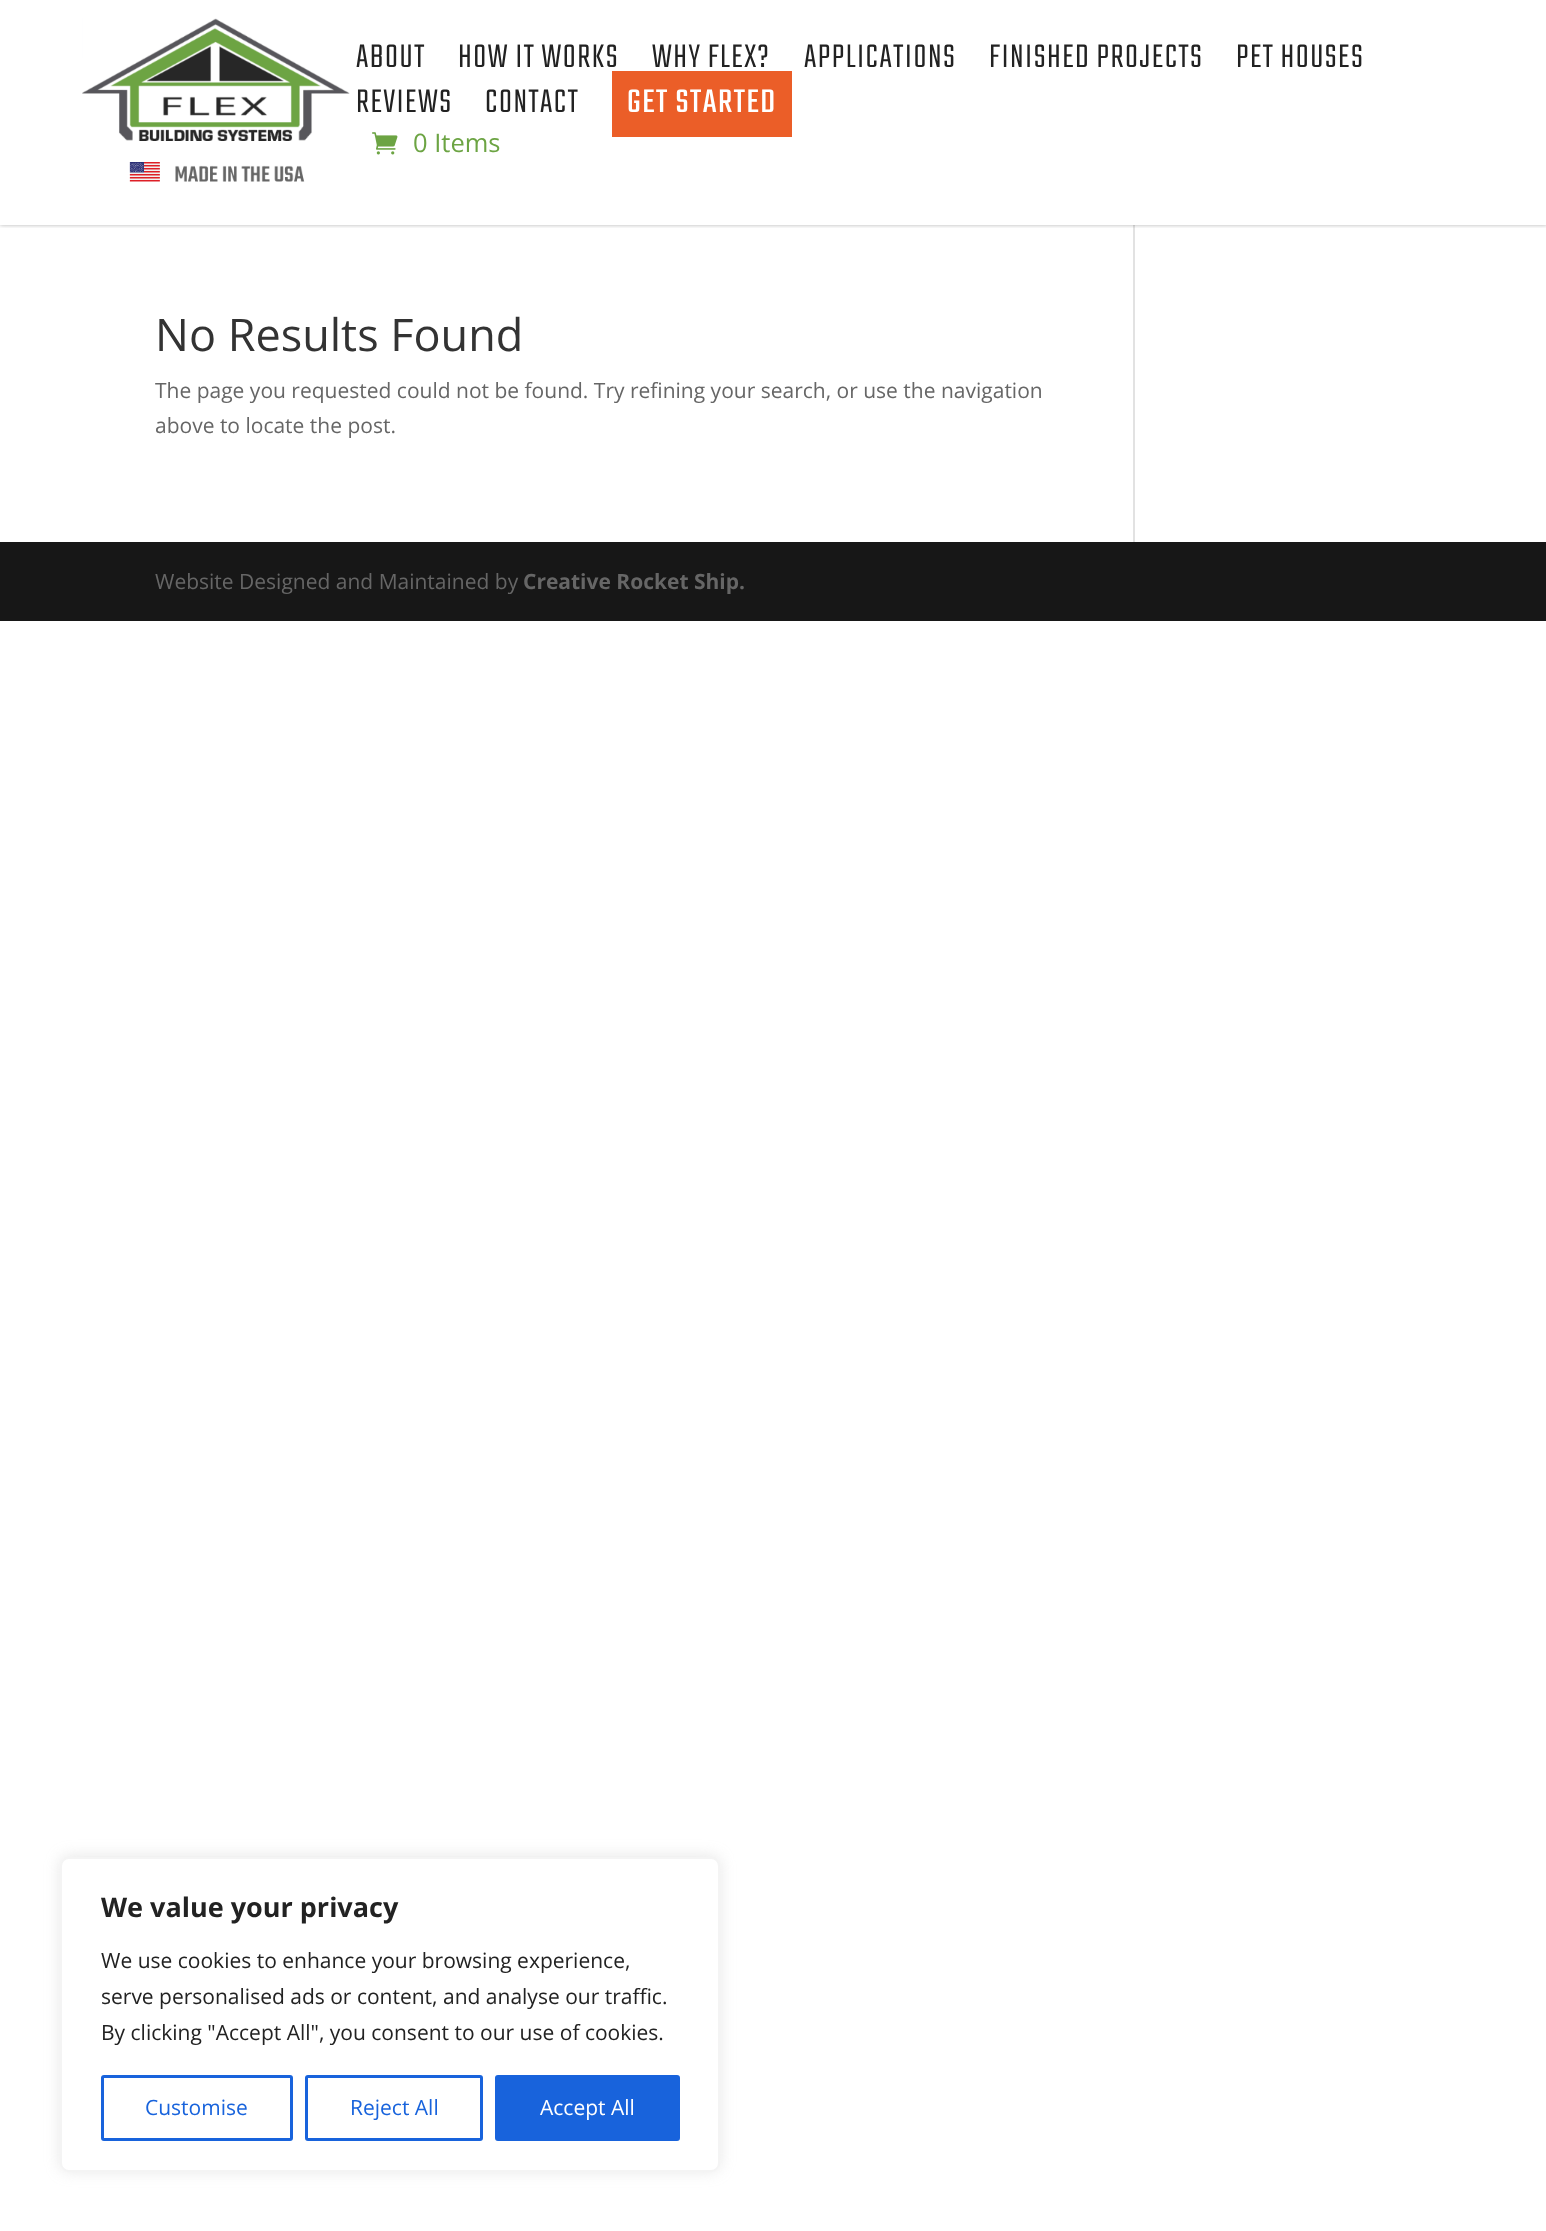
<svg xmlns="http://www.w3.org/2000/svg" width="1546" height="2231">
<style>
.a{font:300 36px Teko;letter-spacing:1.5px;fill:#222}
.b{font:36px Teko;letter-spacing:1.5px;fill:#fff}
.c{font:25.5px Open Sans;fill:#6ca443}
.d{font:45px Open Sans;fill:#333}
.e{font:21px Open Sans;fill:#666}
.f{font:bold 21px Open Sans;fill:#666}
.g{font:bold 27px Open Sans;fill:#222}
.h{font:21px Open Sans;fill:#222}
.i{font:21px Open Sans;fill:#1863dc}
.j{font:21px Open Sans;fill:#fff}
</style>
<defs>
<clipPath id="clip1"><path d="M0 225h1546v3H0z"/></clipPath>
</defs>
<rect width="100%" height="100%" fill="#fff"/>
<path fill="#e2e2e2" d="M1133 225h2v317H1133z"/>
<g clip-path="url(#clip1)">
<path fill="#0000004d" filter="blur(2px)" d="M0 0h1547v225H0z"/>
</g>
<image href="1.png" x="82" y="18" width="268" height="164"/>
<path fill="#eb5e28" d="M612 71h180v66H612z"/>
<image href="2.png" x="372" y="132" width="26" height="23"/>
<path fill="#171717" d="M0 542h1546v79H0z"/>
<rect fill="#acabab4d" filter="blur(7.5px)" x="60" y="1856" width="660" height="315" rx="9"/>
<rect fill="#fff" stroke="#f4f4f4" stroke-width="2" x="61" y="1858" width="658" height="313" rx="8"/>
<rect fill="none" stroke="#1863dc" stroke-width="3" x="102.5" y="2076.5" width="189" height="63" rx="1.5"/>
<rect fill="none" stroke="#1863dc" stroke-width="3" x="306.5" y="2076.5" width="175" height="63" rx="1.5"/>
<rect fill="#1863dc" stroke="#1863dc" stroke-width="3" x="496.5" y="2076.5" width="182" height="63" rx="1.5"/>
<text class="a" x="356" y="67">ABOUT</text>
<text class="a" x="458" y="67">HOW IT WORKS</text>
<text class="a" x="652" y="67">WHY FLEX?</text>
<text class="a" x="804" y="67">APPLICATIONS</text>
<text class="a" x="989" y="67">FINISHED PROJECTS</text>
<text class="a" x="1236" y="67">PET HOUSES</text>
<text class="a" x="356" y="112">REVIEWS</text>
<text class="a" x="485" y="112">CONTACT</text>
<text class="b" x="627" y="112">GET STARTED</text>
<text class="c" x="413" y="152">0 Items</text>
<text class="d" x="155" y="351">No Results Found</text>
<text class="e" x="155" y="398">The page you requested could not be found. Try refining your search, or use the navigation</text>
<text class="e" x="155" y="433">above to locate the post.</text>
<text class="e" x="155" y="589">Website Designed and Maintained by</text>
<text class="f" x="523" y="589">Creative Rocket Ship.</text>
<text class="g" x="101" y="1917">We value your privacy</text>
<text class="h" x="101" y="1968">We use cookies to enhance your browsing experience,</text>
<text class="h" x="101" y="2004">serve personalised ads or content, and analyse our traffic.</text>
<text class="h" x="101" y="2040">By clicking "Accept All", you consent to our use of cookies.</text>
<text class="i" x="145" y="2115">Customise</text>
<text class="i" x="350" y="2115">Reject All</text>
<text class="j" x="540" y="2115">Accept All</text>
</svg>
